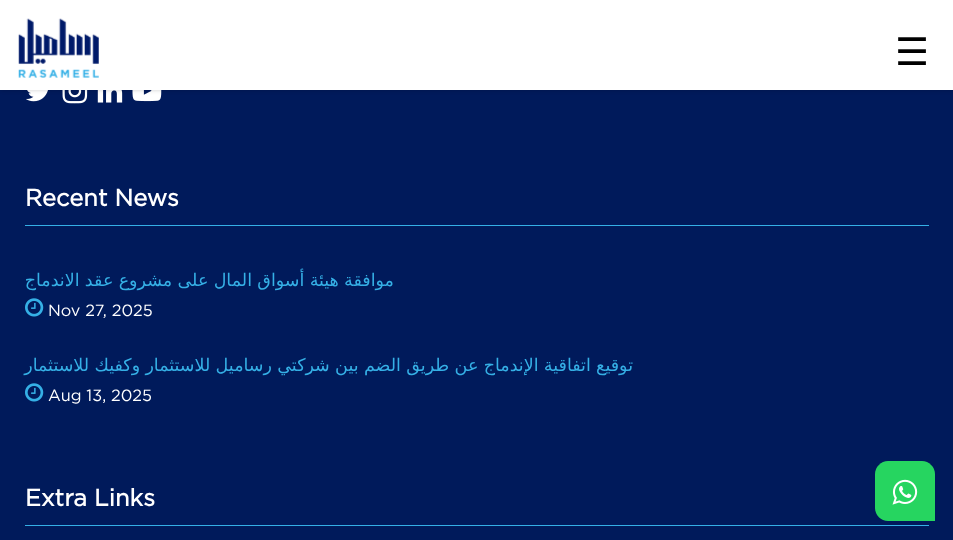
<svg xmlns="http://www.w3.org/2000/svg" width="953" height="540">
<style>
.a{font:38px DejaVu Sans;fill:#000}
.b{font:bold 23.75px Gotham;fill:#fff}
.c{font:17.5px DejaVu Sans;direction:rtl;fill:#35b0e6}
.d{font:16.25px Gotham;fill:#fff}
</style>
<rect width="100%" height="100%" fill="#001a5b"/>
<image href="3.png" x="132" y="90" width="30" height="12"/>
<image href="4.png" x="97" y="90" width="26" height="13"/>
<image href="5.png" x="62" y="90" width="26" height="14"/>
<image href="6.png" x="26" y="90" width="22" height="12"/>
<path fill="#00000033" filter="blur(2px)" d="M0 0h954v90H0z"/>
<path fill="#fff" d="M0 0h953v90H0z"/>
<image href="1.png" x="18" y="18" width="81" height="60"/>
<path fill="#26d560" d="M888 461h34c7 0 13 6 13 13v47h-47c-7 0-13-6-13-13v-34c0-7 6-13 13-13z"/>
<image href="2.png" x="892" y="479" width="26" height="26"/>
<path fill="#35b0e6" d="M25 225h904v1H25z"/>
<image href="7.png" x="25" y="298" width="19" height="19"/>
<image href="7.png" x="25" y="383" width="19" height="19"/>
<path fill="#35b0e6" d="M25 525h904v1H25z"/>
<text class="a" x="895" y="65">☰</text>
<text class="b" x="25" y="206">Recent News</text>
<text class="c" x="394" y="286" word-spacing="-0.25">موافقة هيئة أسواق المال على مشروع عقد الاندماج</text>
<text class="d" x="48" y="316">Nov 27, 2025</text>
<text class="c" x="633" y="371" word-spacing="-0.25">توقيع اتفاقية الإندماج عن طريق الضم بين شركتي رساميل للاستثمار وكفيك للاستثمار</text>
<text class="d" x="48" y="401">Aug 13, 2025</text>
<text class="b" x="25" y="506">Extra Links</text>
</svg>
